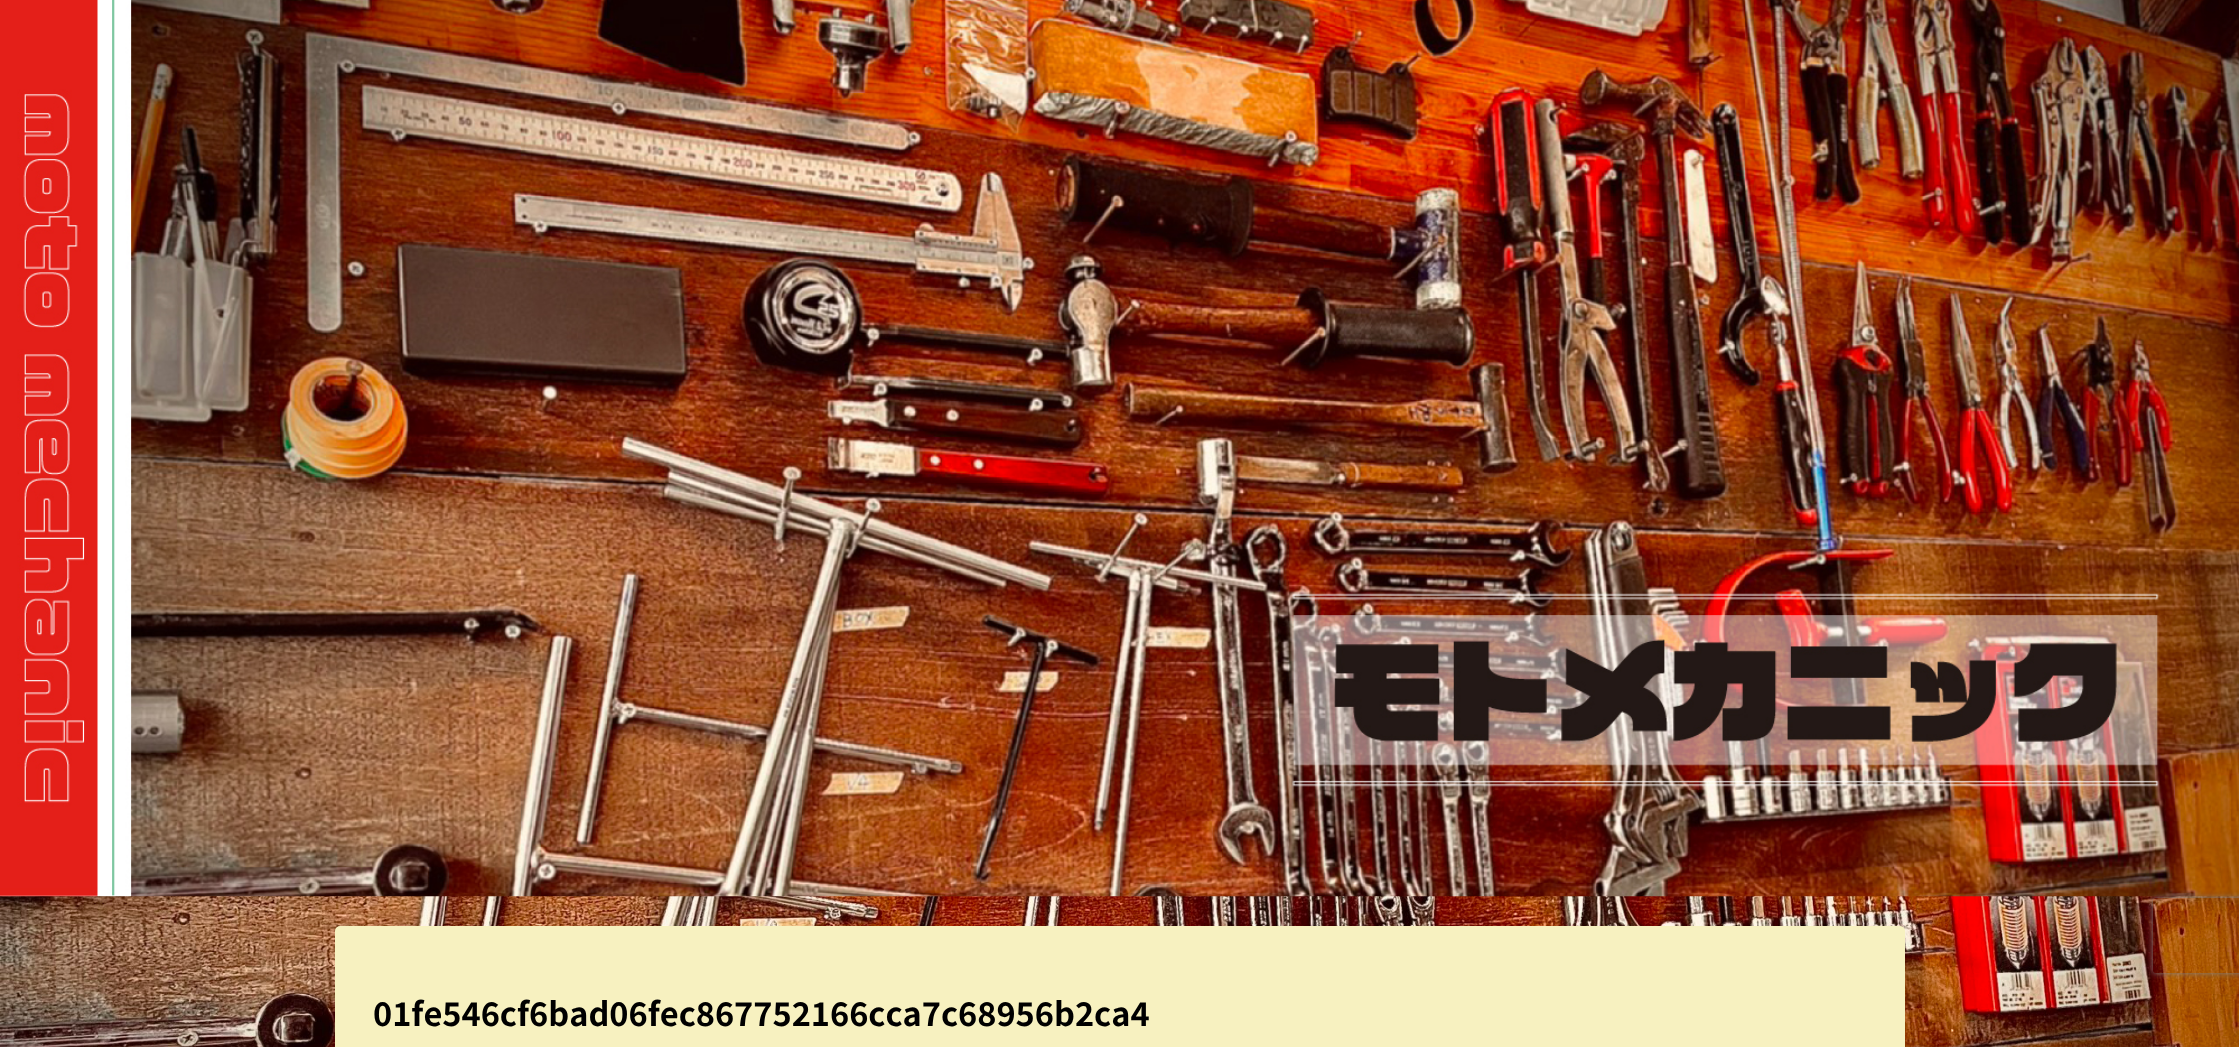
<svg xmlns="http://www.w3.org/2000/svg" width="2239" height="1047">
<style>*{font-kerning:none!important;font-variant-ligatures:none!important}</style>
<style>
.a{font:bold 32.5px Noto Sans JP;fill:#000}
</style>
<defs>
<clipPath id="clip1"><path d="M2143 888h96v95h-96zm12.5 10h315c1.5 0 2.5 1 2.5 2.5v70c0 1.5-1 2.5-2.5 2.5h-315c-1.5 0-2.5-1-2.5-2.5v-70c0-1.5 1-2.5 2.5-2.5z" clip-rule="evenodd"/></clipPath>
</defs>
<rect width="100%" height="100%" fill="#fff"/>
<image href="1.png" x="0" y="896" width="2239" height="151"/>
<image href="2.png" x="0" y="0" width="2239" height="897"/>
<g clip-path="url(#clip1)">
<rect fill="#808080" filter="blur(3px)" x="2153" y="898" width="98" height="75" rx="2.5"/>
</g>
<rect fill="#f7f1c0" x="335" y="926" width="1570" height="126" rx="5"/>
<text class="a" x="373" y="1026">01fe546cf6bad06fec867752166cca7c68956b2ca4</text>
</svg>
